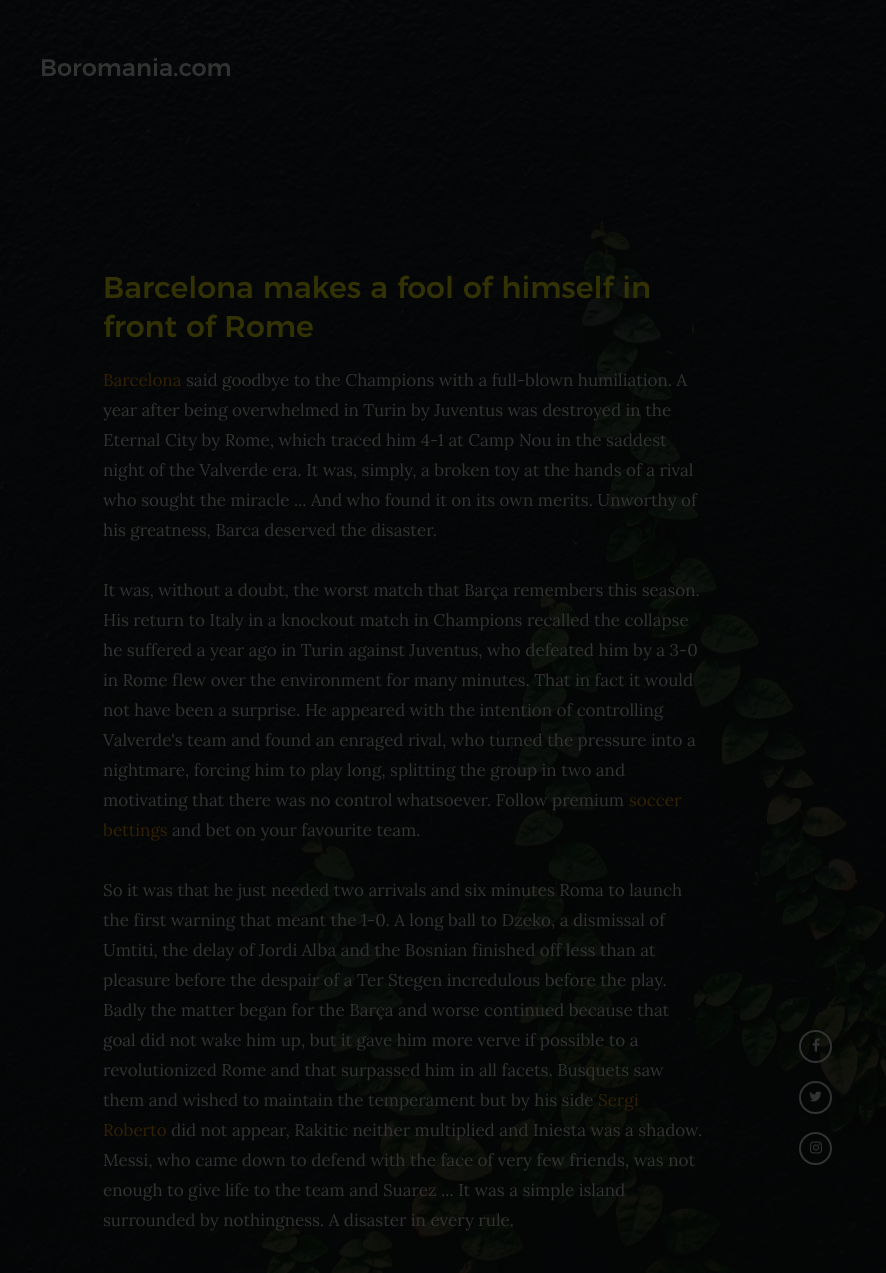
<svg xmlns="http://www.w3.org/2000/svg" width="886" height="1273">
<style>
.a{font:500 24px Montserrat;fill:#323232}
.b{font:500 30px Montserrat;fill:#323204}
.c{font:17px Lora;fill:#322204}
.d{font:17px Lora;fill:#323232}
</style>
<rect width="100%" height="100%" fill="#fff"/>
<image href="1.png" x="0" y="0" width="886" height="1273"/>
<circle fill="none" stroke="#323232" stroke-width="2" cx="815.5" cy="1046.5" r="15.5"/>
<image href="2.png" x="812" y="1038" width="8" height="14"/>
<circle fill="none" stroke="#323232" stroke-width="2" cx="815.5" cy="1097.5" r="15.5"/>
<image href="3.png" x="809" y="1091" width="13" height="11"/>
<circle fill="none" stroke="#323232" stroke-width="2" cx="815.5" cy="1148.5" r="15.5"/>
<image href="4.png" x="810" y="1141" width="12" height="13"/>
<text class="a" x="40" y="76">Boromania.com</text>
<text class="b" x="103" y="298">Barcelona makes a fool of himself in</text>
<text class="b" x="103" y="337">front of Rome</text>
<text class="c" x="103" y="386">Barcelona</text>
<text class="d" x="186" y="386">said goodbye to the Champions with a full-blown humiliation. A</text>
<text class="d" x="103" y="416">year after being overwhelmed in Turin by Juventus was destroyed in the</text>
<text class="d" x="103" y="446">Eternal City by Rome, which traced him 4-1 at Camp Nou in the saddest</text>
<text class="d" x="103" y="476">night of the Valverde era. It was, simply, a broken toy at the hands of a rival</text>
<text class="d" x="103" y="506">who sought the miracle ... And who found it on its own merits. Unworthy of</text>
<text class="d" x="103" y="536">his greatness, Barca deserved the disaster.</text>
<text class="d" x="103" y="596">It was, without a doubt, the worst match that Barça remembers this season.</text>
<text class="d" x="103" y="626">His return to Italy in a knockout match in Champions recalled the collapse</text>
<text class="d" x="103" y="656">he suffered a year ago in Turin against Juventus, who defeated him by a 3-0</text>
<text class="d" x="103" y="686">in Rome flew over the environment for many minutes. That in fact it would</text>
<text class="d" x="103" y="716">not have been a surprise. He appeared with the intention of controlling</text>
<text class="d" x="103" y="746">Valverde's team and found an enraged rival, who turned the pressure into a</text>
<text class="d" x="103" y="776">nightmare, forcing him to play long, splitting the group in two and</text>
<text class="d" x="103" y="806">motivating that there was no control whatsoever. Follow premium</text>
<text class="c" x="629" y="806">soccer</text>
<text class="c" x="103" y="836">bettings</text>
<text class="d" x="172" y="836">and bet on your favourite team.</text>
<text class="d" x="103" y="896">So it was that he just needed two arrivals and six minutes Roma to launch</text>
<text class="d" x="103" y="926">the first warning that meant the 1-0. A long ball to Dzeko, a dismissal of</text>
<text class="d" x="103" y="956">Umtiti, the delay of Jordi Alba and the Bosnian finished off less than at</text>
<text class="d" x="103" y="986">pleasure before the despair of a Ter Stegen incredulous before the play.</text>
<text class="d" x="103" y="1016">Badly the matter began for the Barça and worse continued because that</text>
<text class="d" x="103" y="1046">goal did not wake him up, but it gave him more verve if possible to a</text>
<text class="d" x="103" y="1076">revolutionized Rome and that surpassed him in all facets. Busquets saw</text>
<text class="d" x="103" y="1106">them and wished to maintain the temperament but by his side</text>
<text class="c" x="598" y="1106">Sergi</text>
<text class="c" x="103" y="1136">Roberto</text>
<text class="d" x="171" y="1136">did not appear, Rakitic neither multiplied and Iniesta was a shadow.</text>
<text class="d" x="103" y="1166">Messi, who came down to defend with the face of very few friends, was not</text>
<text class="d" x="103" y="1196">enough to give life to the team and Suarez ... It was a simple island</text>
<text class="d" x="103" y="1226">surrounded by nothingness. A disaster in every rule.</text>
</svg>
